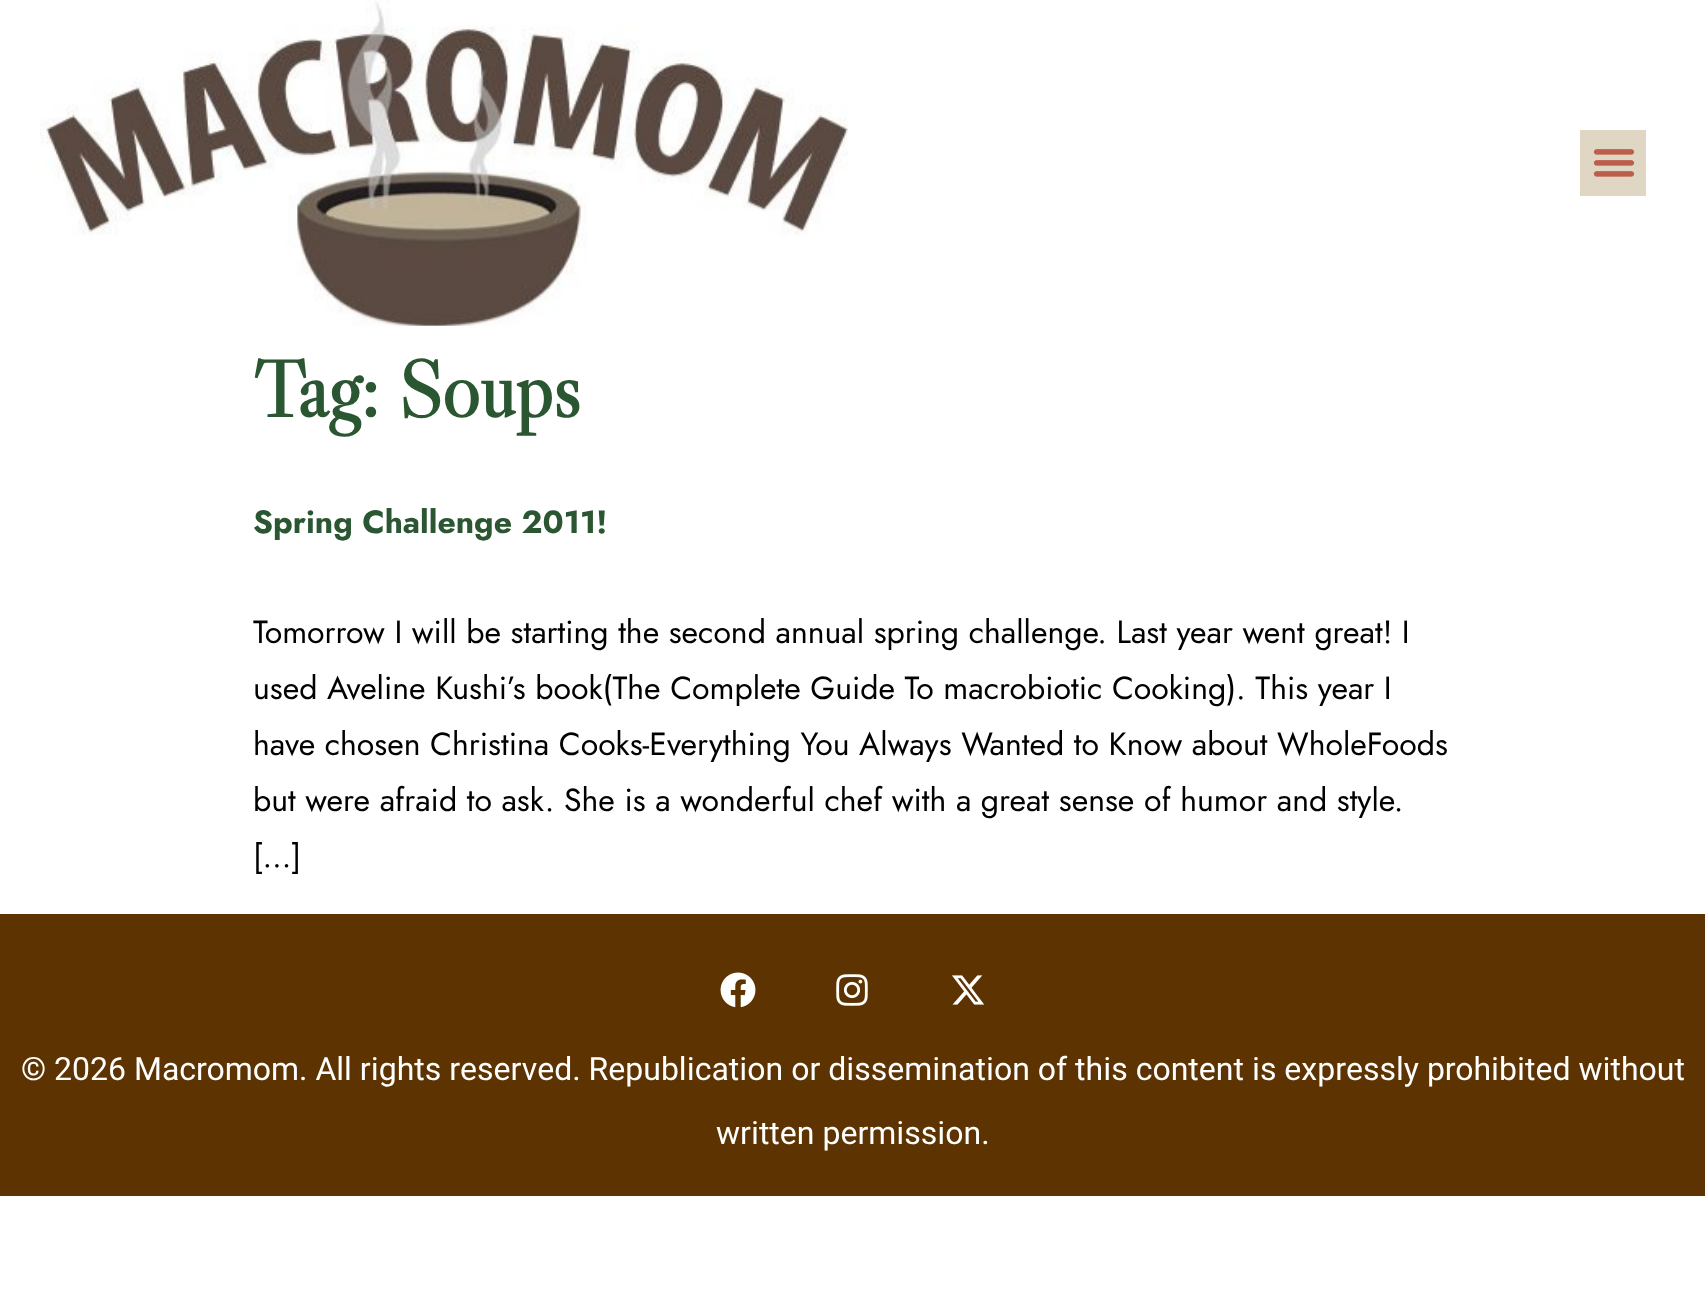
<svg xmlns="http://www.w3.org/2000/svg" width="1705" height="1316">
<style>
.a{font:bold 80px Libre Caslon Display;fill:#2a5631}
.b{font:bold 32px Jost;fill:#2a5631}
.c{font:32px Jost;fill:#000}
.d{font:32px Heebo;fill:#fff}
</style>
<rect width="100%" height="100%" fill="#fff"/>
<image href="1.png" x="40" y="0" width="809" height="326"/>
<path fill="#dfd7c3" d="M1580 130h66v66H1580z"/>
<image href="2.png" x="1593" y="149" width="42" height="28"/>
<path fill="#5d3301" d="M0 914h1705v282H0z"/>
<image href="3.png" x="720" y="972" width="36" height="36"/>
<image href="4.png" x="836" y="974" width="32" height="32"/>
<image href="5.png" x="952" y="975" width="33" height="30"/>
<text class="a" x="253" y="417">Tag: Soups</text>
<text class="b" x="253" y="533">Spring Challenge 2011!</text>
<text class="c" x="253" y="643">Tomorrow I will be starting the second annual spring challenge. Last year went great! I</text>
<text class="c" x="253" y="699">used Aveline Kushi’s book(The Complete Guide To macrobiotic Cooking). This year I</text>
<text class="c" x="253" y="755">have chosen Christina Cooks-Everything You Always Wanted to Know about WholeFoods</text>
<text class="c" x="253" y="811">but were afraid to ask. She is a wonderful chef with a great sense of humor and style.</text>
<text class="c" x="253" y="867">[…]</text>
<text class="d" x="21" y="1080">© 2026 Macromom. All rights reserved. Republication or dissemination of this content is expressly prohibited without</text>
<text class="d" x="716" y="1144">written permission.</text>
</svg>
